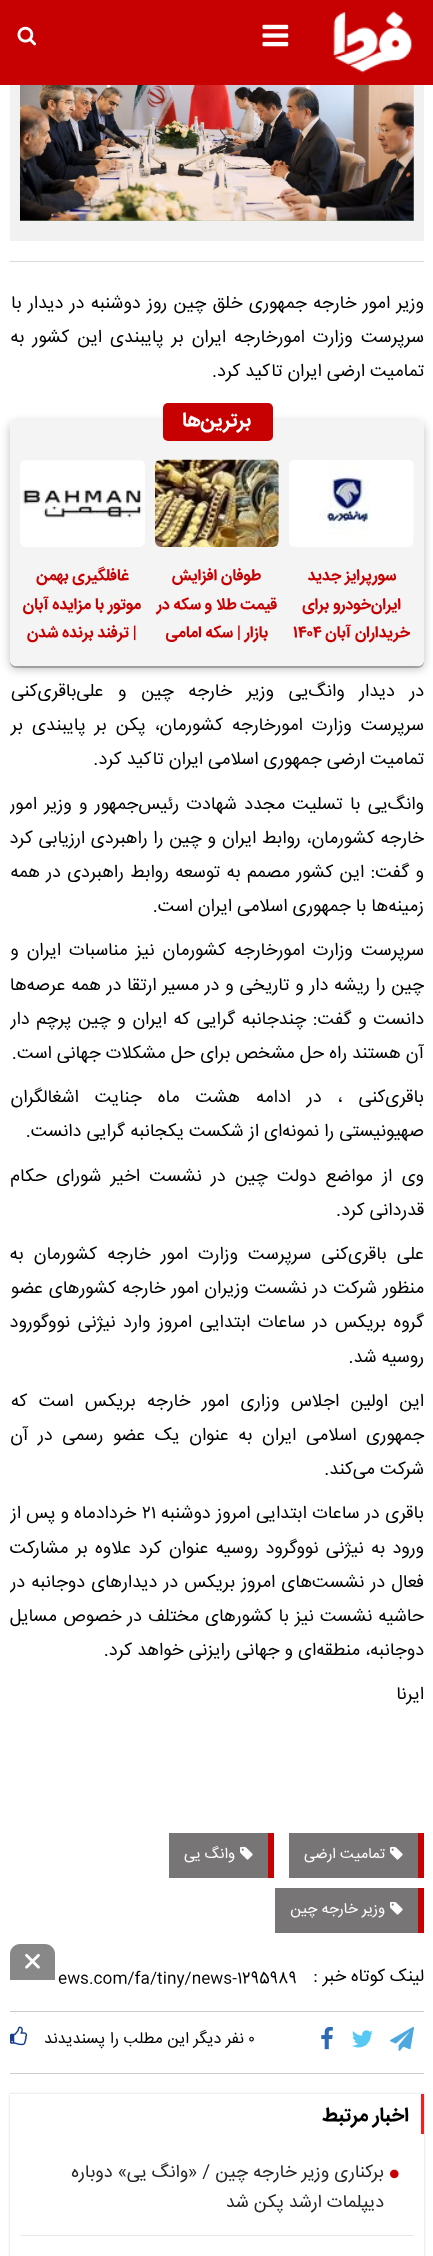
<svg xmlns="http://www.w3.org/2000/svg" width="433" height="2256">
<style>
.a{font:18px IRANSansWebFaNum;direction:rtl;fill:#000}
.b{font:bold 20px IRANSansWebFaNum;direction:rtl;fill:#fff}
.c{font:bold 16px IRANSansWebFaNum;direction:rtl;fill:#c70102}
.d{font:bold 16px IRANSansWebFaNum;fill:#c70102}
.e{font:18px IRANSansWebFaNum;fill:#000}
.f{font:15px IRANSansWebFaNum;direction:rtl;fill:#fff}
.g{font:17.5px IRANSansWebFaNum;direction:rtl;fill:#000}
.h{font:16px IRANSansWebFaNum;fill:#000}
.i{font:16px IRANSansWebFaNum;direction:rtl;fill:#000}
.j{font:bold 20px IRANSansWebFaNum;direction:rtl;fill:#000}
.k{font:18px IRANSansWebFaNum;direction:rtl;fill:#282525}
</style>
<defs>
<clipPath id="clip1"><path d="M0 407h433v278h-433zm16 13h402c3.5 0 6 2.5 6 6v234c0 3.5-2.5 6-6 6h-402c-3.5 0-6-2.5-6-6v-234c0-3.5 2.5-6 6-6z" clip-rule="evenodd"/></clipPath>
<clipPath id="clip2"><path d="M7 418h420v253h-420zm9 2h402c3.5 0 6 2.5 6 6v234c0 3.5-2.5 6-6 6h-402c-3.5 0-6-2.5-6-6v-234c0-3.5 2.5-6 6-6z" clip-rule="evenodd"/></clipPath>
<clipPath id="clip3"><path d="M10 789h414v136H10z"/></clipPath>
<clipPath id="clip4"><path d="M10 935h414v138H10z"/></clipPath>
<clipPath id="clip5"><path d="M10 1499h414v171H10z"/></clipPath>
</defs>
<rect width="100%" height="100%" fill="#fff"/>
<path fill="#c70102" d="M0 0h433v85H0z"/>
<image href="1.png" x="333" y="11" width="79" height="62"/>
<image href="2.png" x="262" y="24" width="27" height="23"/>
<image href="3.png" x="17" y="26" width="19" height="20"/>
<path fill="#dadada" d="M10 261h414v1H10z"/>
<path fill="#f1f1f1" d="M10 85h414v156H10z"/>
<image href="4.png" x="20" y="85" width="394" height="136"/>
<g clip-path="url(#clip1)">
<rect fill="#00000040" filter="blur(5px)" x="10" y="423" width="414" height="246" rx="6"/>
</g>
<g clip-path="url(#clip2)">
<rect fill="#00000040" filter="blur(0.5px)" x="10" y="421" width="414" height="247" rx="6"/>
</g>
<rect fill="#f1f1f1c2" x="10" y="420" width="414" height="246" rx="6"/>
<rect fill="#c70102" x="163" y="403" width="110" height="38" rx="5"/>
<image href="5.png" x="289" y="460" width="125" height="87"/>
<image href="6.png" x="155" y="459" width="124" height="88"/>
<image href="7.png" x="20" y="460" width="125" height="87"/>
<path fill="#777575" d="M289 1833h129v45H289z"/>
<path fill="#c70102" d="M418 1833h6v45H418z"/>
<image href="8.png" x="390" y="1846" width="13" height="14"/>
<path fill="#777575" d="M169 1833h99v45H169z"/>
<path fill="#c70102" d="M268 1833h6v45H268z"/>
<image href="8.png" x="240" y="1846" width="13" height="14"/>
<path fill="#777575" d="M275 1888h143v45H275z"/>
<path fill="#c70102" d="M418 1888h6v45H418z"/>
<image href="8.png" x="390" y="1901" width="13" height="14"/>
<path fill="#ccc" d="M10 2011h414v1H10z"/>
<path fill="#ccc" d="M10 2073h414v1H10z"/>
<image href="9.png" x="390" y="2027" width="24" height="24"/>
<image href="10.png" x="352" y="2030" width="21" height="18"/>
<image href="11.png" x="321" y="2026" width="12" height="24"/>
<image href="12.png" x="10" y="2026" width="18" height="20"/>
<path fill="#6c6c6ccf" d="M20 1944h25c5.5 0 10 4.5 10 10v26h-45v-26c0-5.5 4.5-10 10-10z"/>
<image href="13.png" x="25" y="1953" width="15" height="16"/>
<path fill="#00000033" filter="blur(1px)" d="M10 2094h414v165H10z"/>
<path fill="#fff" d="M10 2094h414v162H10z"/>
<path fill="#fb1d1d" d="M421 2094h3v40H421z"/>
<path fill="#e8e8e8" d="M20 2235h394v1H20z"/>
<image href="14.png" x="390" y="2169" width="9" height="10"/>
<text class="a" x="424" y="308" word-spacing="1.25">وزیر امور خارجه جمهوری خلق چین روز دوشنبه در دیدار با</text>
<text class="a" x="424" y="342" word-spacing="3">سرپرست وزارت امورخارجه ایران بر پایبندی این کشور به</text>
<text class="a" x="424" y="376">تمامیت ارضی ایران تاکید کرد.</text>
<text class="b" x="251" y="426">برترین‌ها</text>
<text class="c" x="396" y="580">سورپرایز جدید</text>
<text class="c" x="401" y="609">ایران‌خودرو برای</text>
<text class="c" x="410" y="637">خریداران آبان</text>
<text class="d" x="293" y="637">۱۴۰۴</text>
<text class="c" x="261" y="580">طوفان افزایش</text>
<text class="c" x="277" y="609">قیمت طلا و سکه در</text>
<text class="c" x="268" y="637">بازار | سکه امامی</text>
<text class="c" x="129" y="580">غافلگیری بهمن</text>
<text class="c" x="141" y="609">موتور با مزایده آبان</text>
<text class="c" x="137" y="637">| ترفند برنده شدن</text>
<text class="a" x="424" y="696" word-spacing="9.5">در دیدار وانگ‌یی وزیر خارجه چین و علی‌باقری‌کنی</text>
<text class="a" x="424" y="730" word-spacing="4">سرپرست وزارت امورخارجه کشورمان، پکن بر پایبندی بر</text>
<text class="a" x="424" y="764">تمامیت ارضی جمهوری اسلامی ایران تاکید کرد.</text>
<g clip-path="url(#clip3)">
<text class="a" x="424" y="809" word-spacing="2.25">وانگ‌یی با تسلیت مجدد شهادت رئیس‌جمهور و وزیر امور</text>
</g>
<text class="a" x="424" y="843" word-spacing="0.75">خارجه کشورمان، روابط ایران و چین را راهبردی ارزیابی کرد</text>
<text class="a" x="424" y="877" word-spacing="1.25">و گفت: این کشور مصمم به توسعه روابط راهبردی در همه</text>
<text class="a" x="424" y="911">زمینه‌ها با جمهوری اسلامی ایران است.</text>
<text class="a" x="424" y="955" word-spacing="3">سرپرست وزارت امورخارجه کشورمان نیز مناسبات ایران و</text>
<text class="a" x="424" y="990" word-spacing="0.7">چین را ریشه دار و تاریخی و در مسیر ارتقا در همه عرصه‌ها</text>
<g clip-path="url(#clip4)">
<text class="a" x="424" y="1024" word-spacing="1.6">دانست و گفت: چندجانبه گرایی که ایران و چین پرچم دار</text>
</g>
<text class="a" x="424" y="1058">آن هستند راه حل مشخص برای حل مشکلات جهانی است.</text>
<text class="a" x="424" y="1102" word-spacing="11">باقری‌کنی ، در ادامه هشت ماه جنایت اشغالگران</text>
<text class="a" x="424" y="1136">صهیونیستی را نمونه‌ای از شکست یکجانبه گرایی دانست.</text>
<text class="a" x="424" y="1181" word-spacing="4.25">وی از مواضع دولت چین در نشست اخیر شورای حکام</text>
<text class="a" x="424" y="1215">قدردانی کرد.</text>
<text class="a" x="424" y="1259" word-spacing="5">علی باقری‌کنی سرپرست وزارت امور خارجه کشورمان به</text>
<text class="a" x="424" y="1293" word-spacing="0.75">منظور شرکت در نشست وزیران امور خارجه کشورهای عضو</text>
<text class="a" x="424" y="1327" word-spacing="2.5">گروه بریکس در ساعات ابتدایی امروز وارد نیژنی نووگورود</text>
<text class="a" x="424" y="1362">روسیه شد.</text>
<text class="a" x="424" y="1406" word-spacing="6.25">این اولین اجلاس وزاری امور خارجه بریکس است که</text>
<text class="a" x="424" y="1440" word-spacing="4.5">جمهوری اسلامی ایران به عنوان یک عضو رسمی در آن</text>
<text class="a" x="424" y="1474">شرکت می‌کند.</text>
<text class="a" x="424" y="1518" word-spacing="0.5">باقری در ساعات ابتدایی امروز دوشنبه</text>
<text class="e" x="142" y="1518">۲۱</text>
<g clip-path="url(#clip5)">
<text class="a" x="136" y="1518">خردادماه و پس از</text>
</g>
<text class="a" x="424" y="1553" word-spacing="2.25">ورود به نیژنی نووگرود روسیه عنوان کرد علاوه بر مشارکت</text>
<g clip-path="url(#clip5)">
<text class="a" x="424" y="1587" word-spacing="1">فعال در نشست‌های امروز بریکس در دیدارهای دوجانبه در</text>
</g>
<text class="a" x="424" y="1621" word-spacing="1">حاشیه نشست نیز با کشورهای مختلف در خصوص مسایل</text>
<text class="a" x="424" y="1655">دوجانبه، منطقه‌ای و جهانی رایزنی خواهد کرد.</text>
<text class="a" x="424" y="1699">ایرنا</text>
<text class="f" x="385" y="1858">تمامیت ارضی</text>
<text class="f" x="235" y="1858">وانگ یی</text>
<text class="f" x="385" y="1913">وزیر خارجه چین</text>
<text class="g" x="424" y="1981">لینک کوتاه خبر :</text>
<text class="h" x="58" y="1983">ews.com/fa/tiny/news-1295989</text>
<text class="h" x="248" y="2043">۰</text>
<text class="i" x="244" y="2043">نفر دیگر این مطلب را</text>
<text class="i" x="105" y="2043">پسندیدند</text>
<text class="j" x="409" y="2121">اخبار مرتبط</text>
<text class="k" x="384" y="2177">برکناری وزیر خارجه چین / «وانگ یی» دوباره</text>
<text class="k" x="384" y="2207">دیپلمات ارشد پکن شد</text>
</svg>
